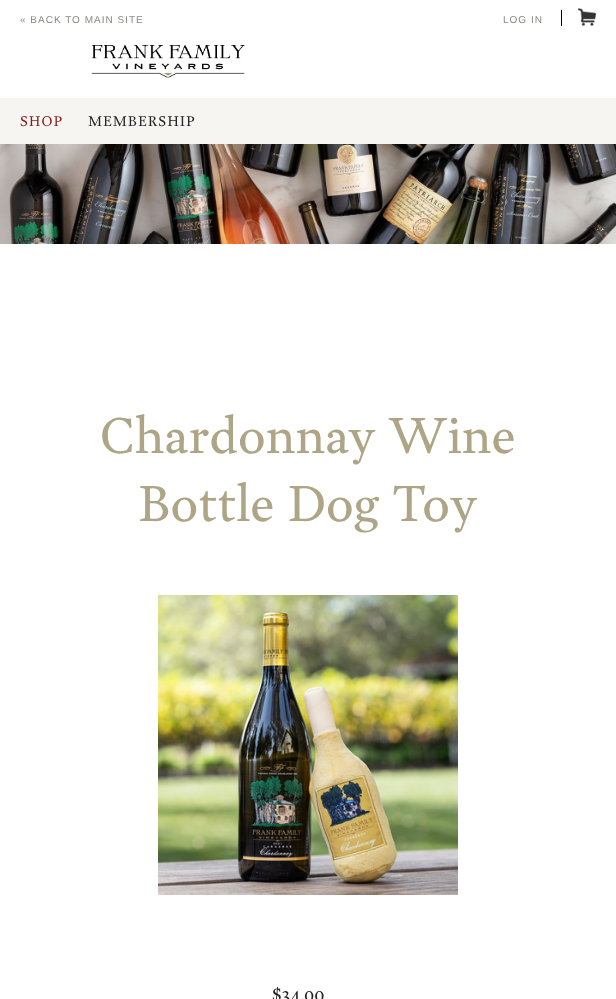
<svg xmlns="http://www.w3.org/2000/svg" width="616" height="999">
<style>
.a{font:10px Liberation Sans;letter-spacing:1px;fill:#878785}
.b{font:14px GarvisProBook;letter-spacing:1px;fill:#811c1c}
.c{font:14px GarvisProBook;letter-spacing:1px;fill:#252525}
.d{font:50px GarvisProBook;fill:#aea587}
.e{font:18px GarvisProBook;fill:#252525}
</style>
<rect width="100%" height="100%" fill="#fff"/>
<path fill="#f6f5f2" d="M0 98h616v46H0z"/>
<path fill="#000" d="M561 10h1v16H561z"/>
<image href="1.png" x="578" y="8" width="18" height="18"/>
<image href="2.png" x="91" y="45" width="154" height="33"/>
<image href="3.png" x="0" y="144" width="616" height="100"/>
<image href="4.png" x="158" y="595" width="300" height="300"/>
<text class="a" x="20" y="23">« BACK TO MAIN SITE</text>
<text class="a" x="503" y="23">LOG IN</text>
<text class="b" x="20" y="126">SHOP</text>
<text class="c" x="88" y="126">MEMBERSHIP</text>
<text class="d" x="100" y="453">Chardonnay Wine</text>
<text class="d" x="138" y="521">Bottle Dog Toy</text>
<text class="e" x="272" y="1001">$34.00</text>
</svg>
